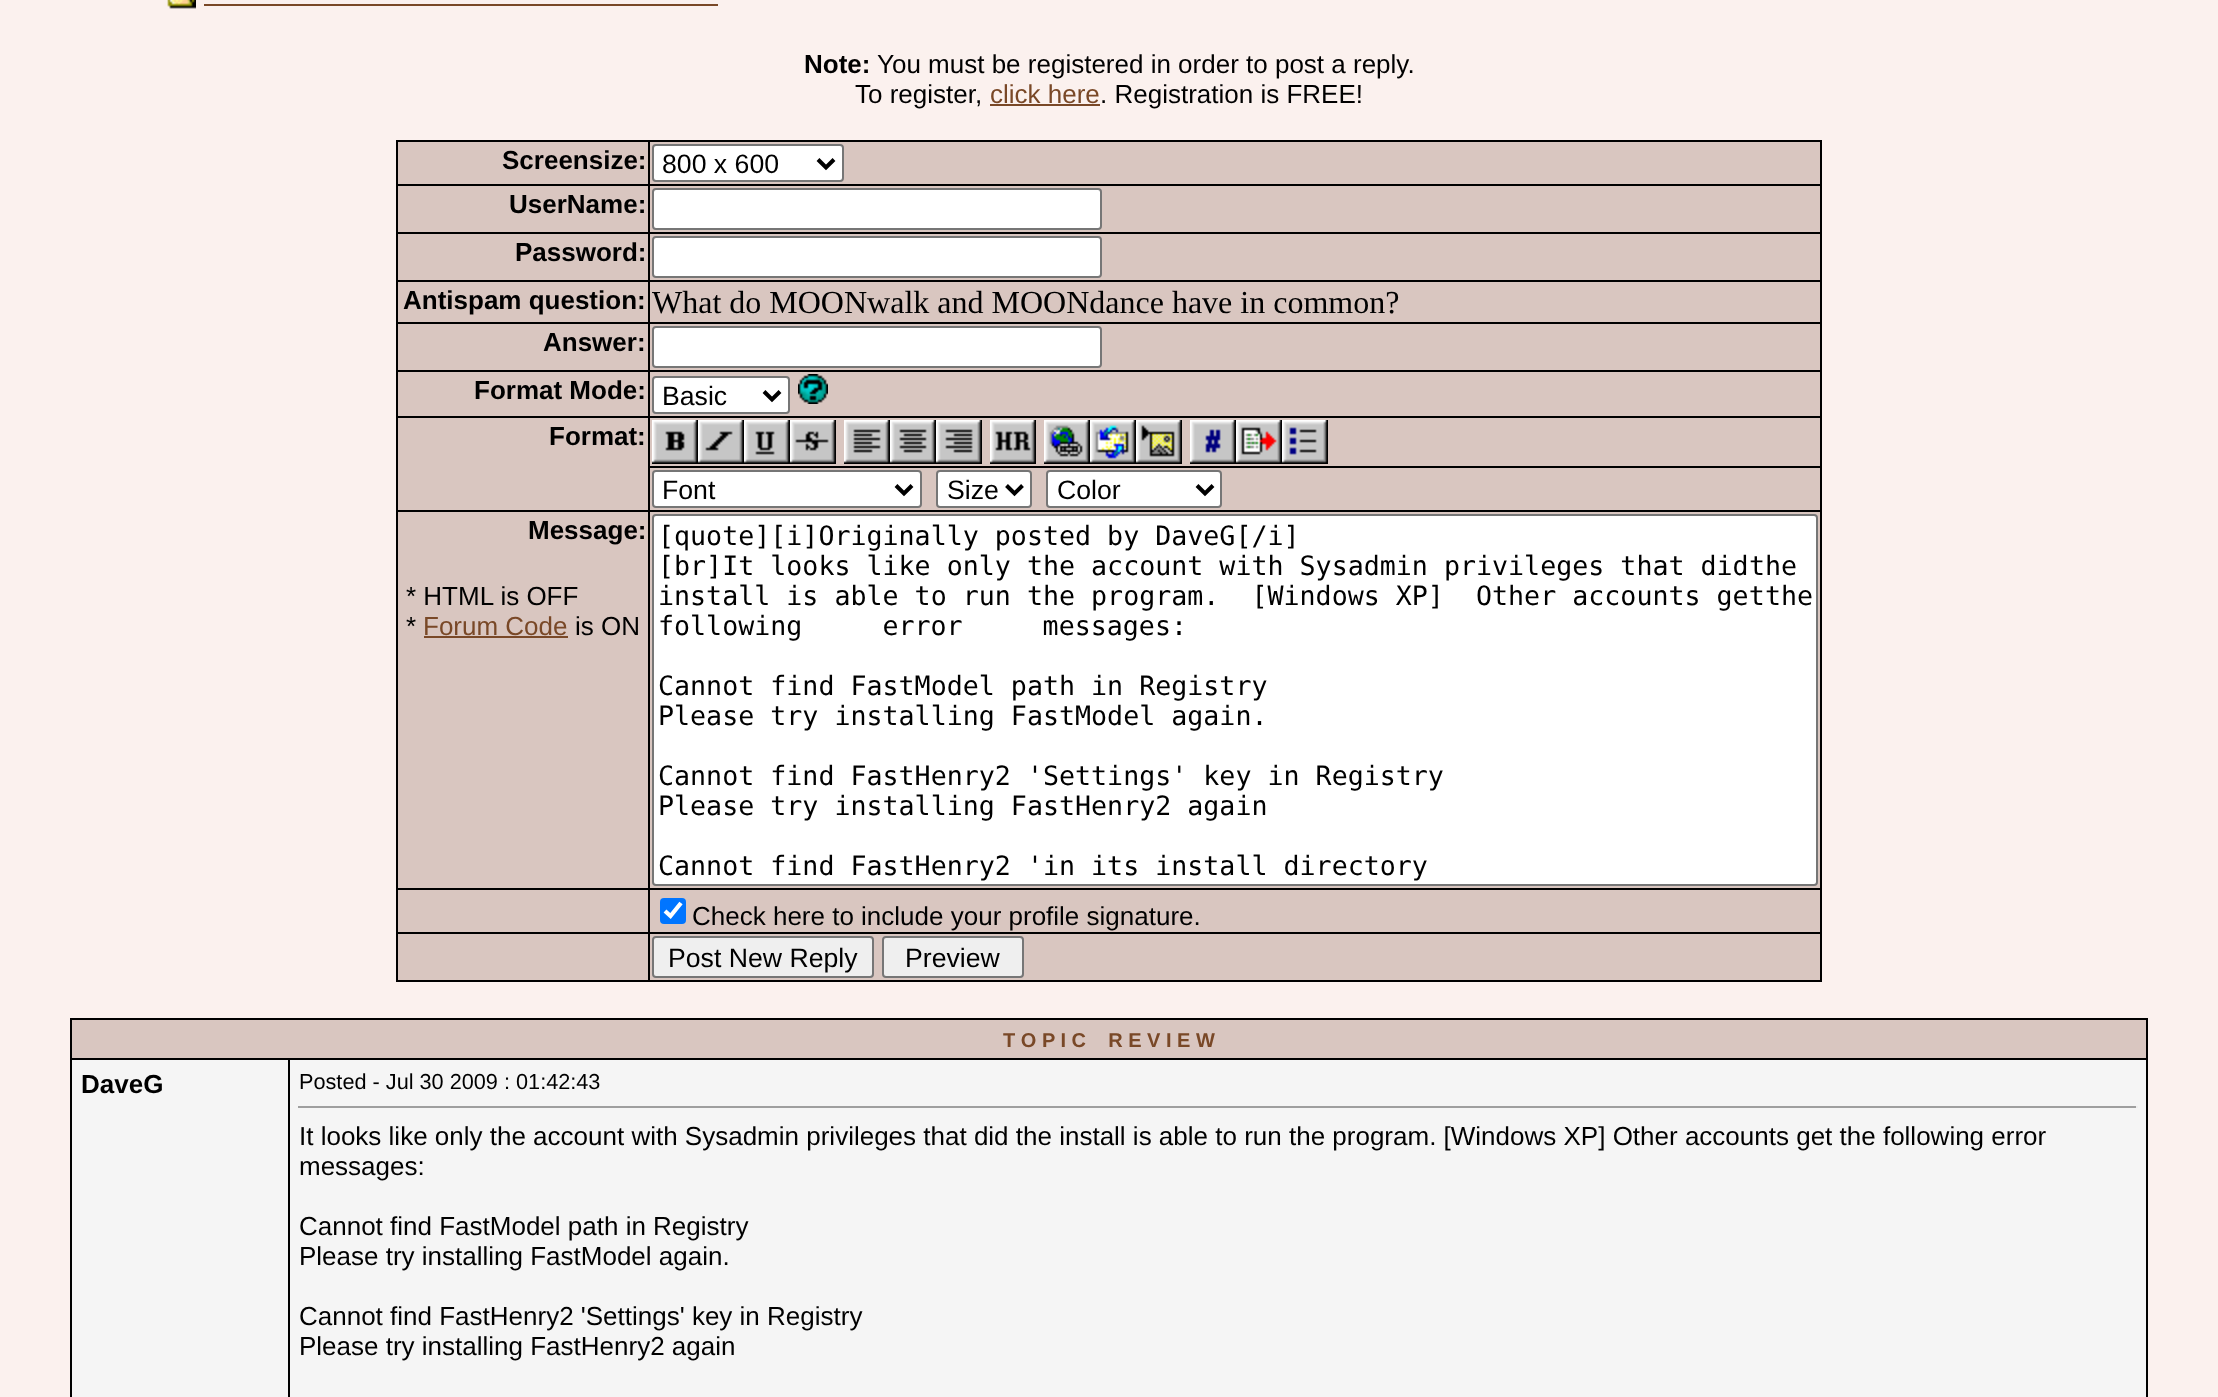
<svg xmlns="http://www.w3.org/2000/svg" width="2218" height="1397">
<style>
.a{font:bold 26px Liberation Sans;fill:#000}
.b{font:26px Liberation Sans;fill:#000}
.c{font:26px Liberation Sans;fill:#794827}
.d{font:26.65px Liberation Sans;fill:#000}
.e{font:32px Liberation Serif;fill:#000}
.f{font:26.65px DejaVu Sans Mono;fill:#000}
.g{font:bold 20px Liberation Sans;fill:#794827}
.h{font:21.7px Liberation Sans;fill:#000}
</style>
<rect width="100%" height="100%" fill="#fbf1ee"/>
<image href="1.png" x="167" y="0" width="29" height="9"/>
<path fill="#794827" d="M204 4h514v2H204z"/>
<path fill="#794827" d="M990 104h110v2H990z"/>
<path fill="#000" d="M396 140h1426v842H396z"/>
<path fill="#d9c6c0" d="M398 142h250v42H398z"/>
<path fill="#d9c6c0" d="M650 142h1170v42H650z"/>
<rect fill="#fff" stroke="#767676" stroke-width="2" x="653" y="145" width="190" height="36" rx="3"/>
<path fill="none" stroke="#000" stroke-width="4" d="M818 159.5l8 8l8-8"/>
<path fill="#d9c6c0" d="M398 186h250v46H398z"/>
<path fill="#d9c6c0" d="M650 186h1170v46H650z"/>
<rect fill="#fff" stroke="#767676" stroke-width="2" x="653" y="189" width="448" height="40" rx="3"/>
<path fill="#d9c6c0" d="M398 234h250v46H398z"/>
<path fill="#d9c6c0" d="M650 234h1170v46H650z"/>
<rect fill="#fff" stroke="#767676" stroke-width="2" x="653" y="237" width="448" height="40" rx="3"/>
<path fill="#d9c6c0" d="M398 282h250v40H398z"/>
<path fill="#d9c6c0" d="M650 282h1170v40H650z"/>
<path fill="#d9c6c0" d="M398 324h250v46H398z"/>
<path fill="#d9c6c0" d="M650 324h1170v46H650z"/>
<rect fill="#fff" stroke="#767676" stroke-width="2" x="653" y="327" width="448" height="40" rx="3"/>
<path fill="#d9c6c0" d="M398 372h250v44H398z"/>
<path fill="#d9c6c0" d="M650 372h1170v44H650z"/>
<rect fill="#fff" stroke="#767676" stroke-width="2" x="653" y="377" width="136" height="36" rx="3"/>
<path fill="none" stroke="#000" stroke-width="4" d="M764 391.5l8 8l8-8"/>
<image href="2.png" x="798" y="374" width="30" height="30"/>
<path fill="#d9c6c0" d="M398 418h250v92H398z"/>
<path fill="#d9c6c0" d="M650 418h1170v48H650z"/>
<image href="3.png" x="652" y="420" width="46" height="44"/>
<image href="4.png" x="698" y="420" width="46" height="44"/>
<image href="5.png" x="744" y="420" width="46" height="44"/>
<image href="6.png" x="790" y="420" width="46" height="44"/>
<image href="7.png" x="844" y="420" width="46" height="44"/>
<image href="8.png" x="890" y="420" width="46" height="44"/>
<image href="9.png" x="936" y="420" width="46" height="44"/>
<image href="10.png" x="990" y="420" width="46" height="44"/>
<image href="11.png" x="1044" y="420" width="46" height="44"/>
<image href="12.png" x="1090" y="420" width="46" height="44"/>
<image href="13.png" x="1136" y="420" width="46" height="44"/>
<image href="14.png" x="1190" y="420" width="46" height="44"/>
<image href="15.png" x="1236" y="420" width="46" height="44"/>
<image href="16.png" x="1282" y="420" width="46" height="44"/>
<path fill="#d9c6c0" d="M650 468h1170v42H650z"/>
<rect fill="#fff" stroke="#767676" stroke-width="2" x="653" y="471" width="268" height="36" rx="3"/>
<path fill="none" stroke="#000" stroke-width="4" d="M896 485.5l8 8l8-8"/>
<rect fill="#fff" stroke="#767676" stroke-width="2" x="937" y="471" width="94" height="36" rx="3"/>
<path fill="none" stroke="#000" stroke-width="4" d="M1006.5 485.5l8 8l8-8"/>
<rect fill="#fff" stroke="#767676" stroke-width="2" x="1047" y="471" width="174" height="36" rx="3"/>
<path fill="none" stroke="#000" stroke-width="4" d="M1197 485.5l8 8l8-8"/>
<path fill="#d9c6c0" d="M398 512h250v376H398z"/>
<path fill="#794827" d="M424 636h144v2H424z"/>
<path fill="#d9c6c0" d="M650 512h1170v376H650z"/>
<rect fill="#fff" stroke="#767676" stroke-width="2" x="653" y="515" width="1164" height="370" rx="3"/>
<path fill="#d9c6c0" d="M398 890h250v42H398z"/>
<path fill="#d9c6c0" d="M650 890h1170v42H650z"/>
<rect fill="#0075ff" x="660" y="898" width="26" height="26" rx="4"/>
<path fill="none" stroke="#fff" stroke-width="4.2" d="M665 911l5.5 5l10.5-13"/>
<path fill="#d9c6c0" d="M398 934h250v46H398z"/>
<path fill="#d9c6c0" d="M650 934h1170v46H650z"/>
<rect fill="#efefef" stroke="#767676" stroke-width="2" x="653" y="937" width="220" height="40" rx="3"/>
<rect fill="#efefef" stroke="#767676" stroke-width="2" x="883" y="937" width="140" height="40" rx="3"/>
<path fill="#000" d="M70 1018h2078v379H70z"/>
<path fill="#d9c6c0" d="M72 1020h2074v38H72z"/>
<path fill="#f5f5f5" d="M72 1060h216v337H72z"/>
<path fill="#f5f5f5" d="M290 1060h1856v337H290z"/>
<path fill="#9f9f9f" d="M298 1106h1840v2H298z"/>
<path fill="#eee" d="M2136 1106h2v2H2136z"/>
<text class="a" x="804" y="73">Note:</text>
<text class="b" x="877" y="73">You must be registered in order to post a reply.</text>
<text class="b" x="855" y="103">To register,</text>
<text class="c" x="990" y="103">click here</text>
<text class="b" x="1100" y="103">. Registration is FREE!</text>
<text class="a" x="502" y="169">Screensize:</text>
<text class="d" x="662" y="173">800 x 600</text>
<text class="a" x="509" y="213">UserName:</text>
<text class="a" x="515" y="261">Password:</text>
<text class="a" x="403" y="309">Antispam question:</text>
<text class="e" x="652" y="313">What do MOONwalk and MOONdance have in common?</text>
<text class="a" x="543" y="351">Answer:</text>
<text class="a" x="474" y="399">Format Mode:</text>
<text class="d" x="662" y="405">Basic</text>
<text class="a" x="549" y="445">Format:</text>
<text class="d" x="662" y="499">Font</text>
<text class="d" x="947" y="499">Size</text>
<text class="d" x="1057" y="499">Color</text>
<text class="a" x="528" y="539">Message:</text>
<text class="b" x="406" y="605">* HTML is OFF</text>
<text class="b" x="406" y="635">*</text>
<text class="c" x="423" y="635">Forum Code</text>
<text class="b" x="575" y="635">is ON</text>
<text class="f" x="658" y="545">[quote][i]Originally posted by DaveG[/i]</text>
<text class="f" x="658" y="575">[br]It looks like only the account with Sysadmin privileges that did</text>
<text class="f" x="1749" y="575">the</text>
<text class="f" xml:space="preserve" x="658" y="605">install is able to run the program.  [Windows XP]  Other accounts get</text>
<text class="f" x="1765" y="605">the</text>
<text class="f" x="658" y="635" word-spacing="64">following error messages:</text>
<text class="f" x="658" y="695">Cannot find FastModel path in Registry</text>
<text class="f" x="658" y="725">Please try installing FastModel again.</text>
<text class="f" x="658" y="785">Cannot find FastHenry2 'Settings' key in Registry</text>
<text class="f" x="658" y="815">Please try installing FastHenry2 again</text>
<text class="f" x="658" y="875">Cannot find FastHenry2 'in its install directory</text>
<text class="b" x="692" y="925">Check here to include your profile signature.</text>
<text class="d" x="668" y="967">Post New Reply</text>
<text class="d" x="905" y="967">Preview</text>
<text class="g" xml:space="preserve" x="1003" y="1047">T O P I C    R E V I E W</text>
<text class="a" x="81" y="1093">DaveG</text>
<text class="h" x="299" y="1089">Posted - Jul 30 2009 : 01:42:43</text>
<text class="b" x="299" y="1145">It looks like only the account with Sysadmin privileges that did the install is able to run the program. [Windows XP] Other accounts get the following error</text>
<text class="b" x="299" y="1175">messages:</text>
<text class="b" x="299" y="1235">Cannot find FastModel path in Registry</text>
<text class="b" x="299" y="1265">Please try installing FastModel again.</text>
<text class="b" x="299" y="1325">Cannot find FastHenry2 'Settings' key in Registry</text>
<text class="b" x="299" y="1355">Please try installing FastHenry2 again</text>
</svg>
